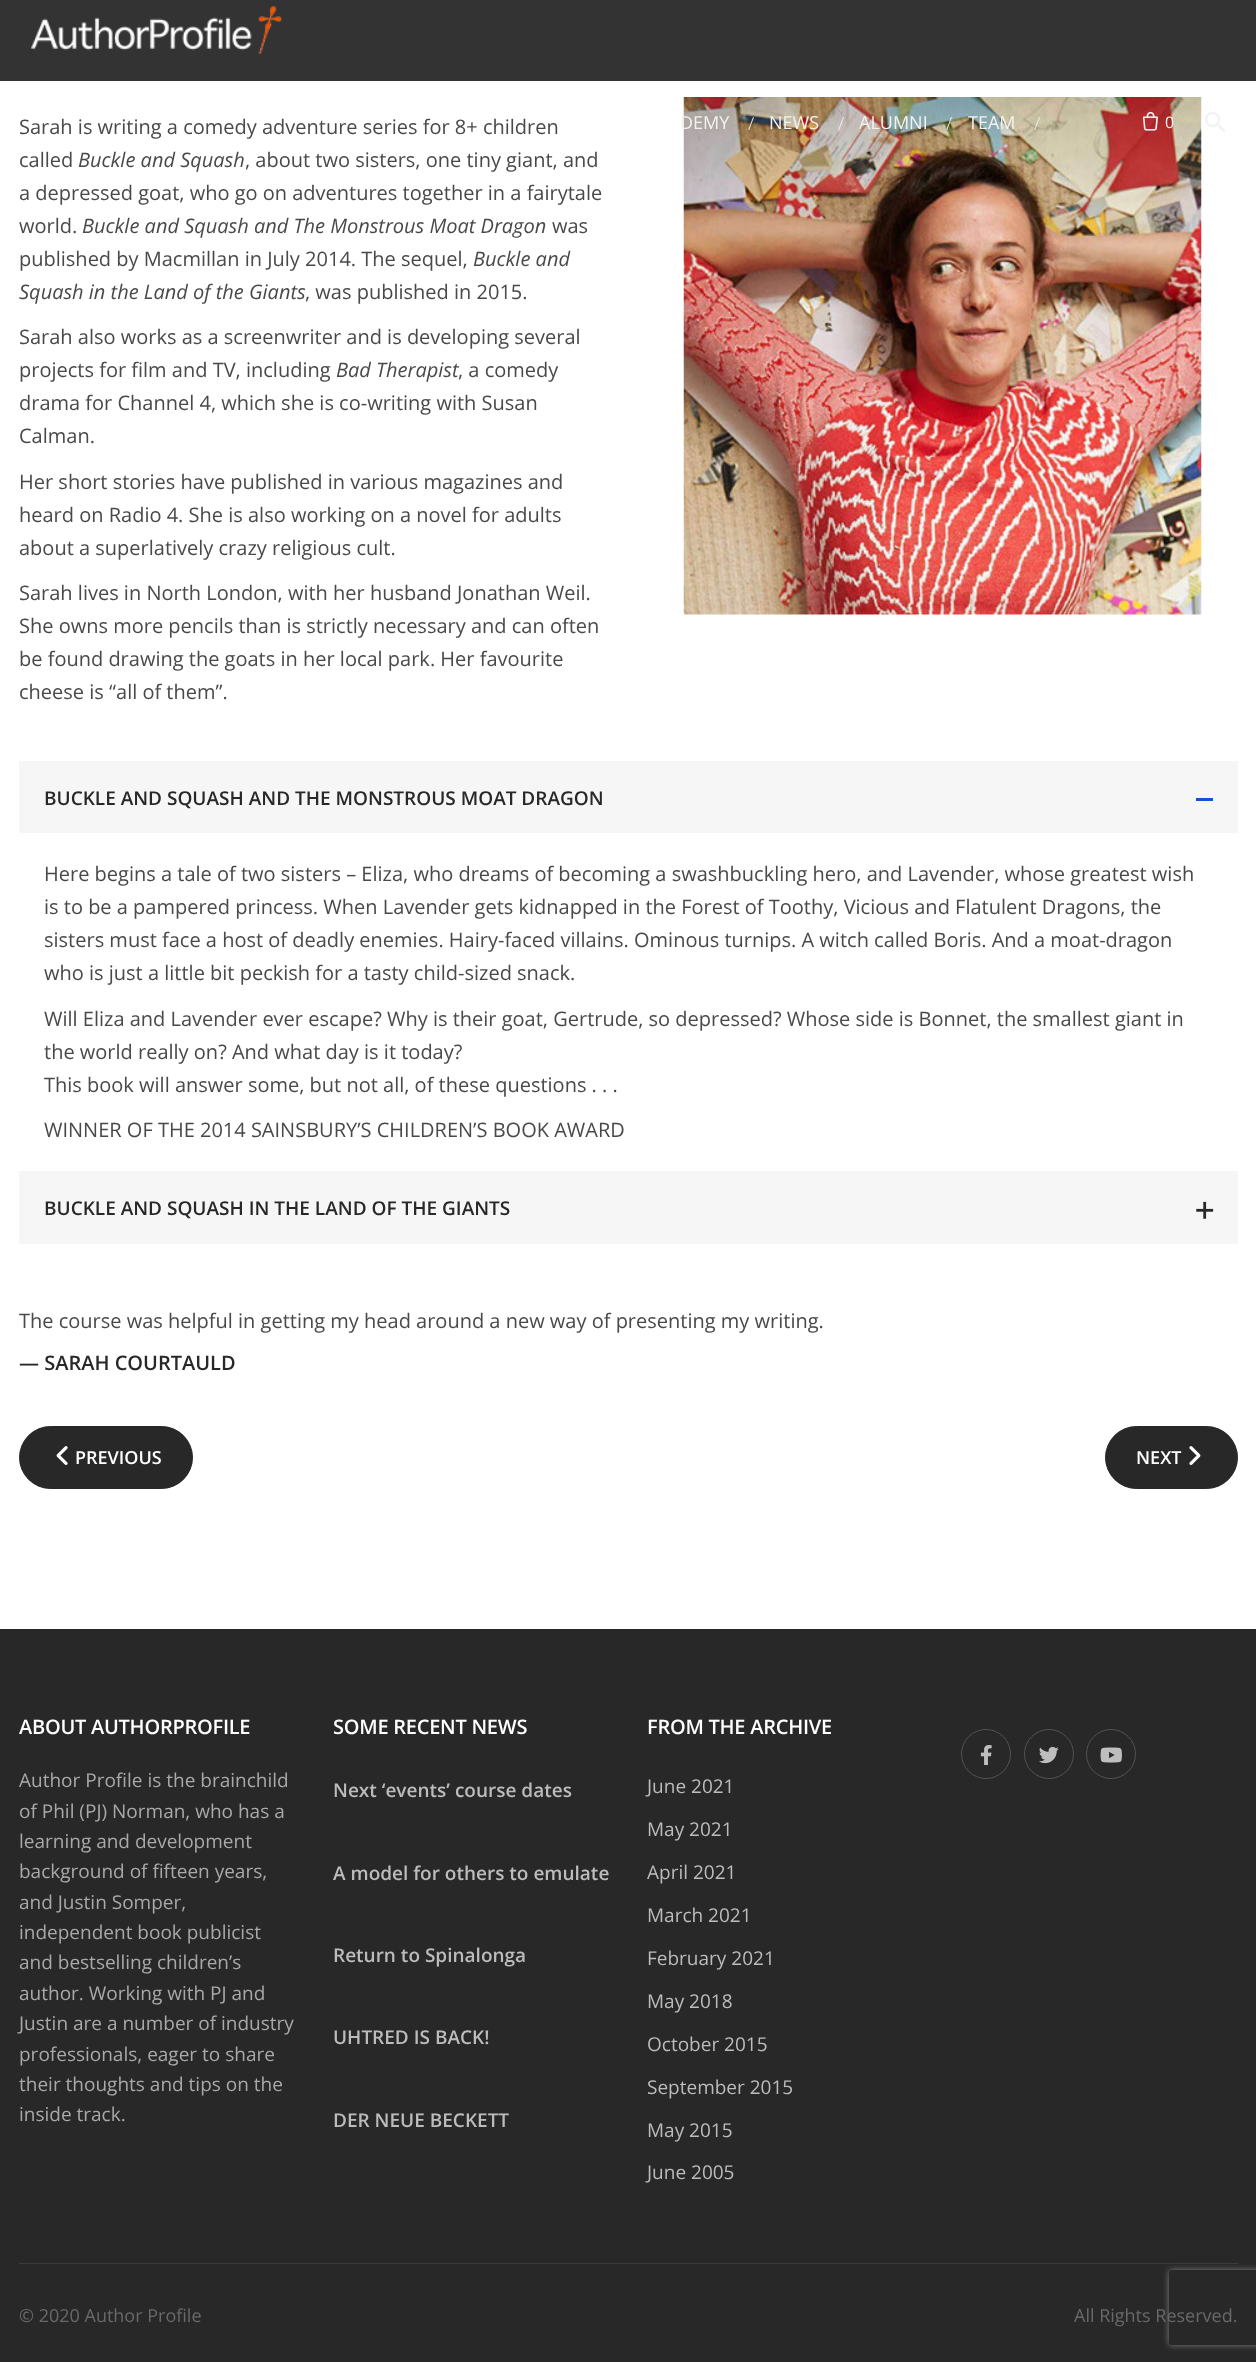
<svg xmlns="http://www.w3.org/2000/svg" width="1256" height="2362">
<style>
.a{font:18px Open Sans;fill:#f2f2f2}
.b{font:300 18px Open Sans;fill:#f2f2f2}
.c{font:16px Open Sans;fill:#f2f2f2}
.d{font:20px Open Sans;fill:#494949}
.e{font:italic 20px Open Sans;fill:#494949}
.f{font:600 19px Open Sans;fill:#282828}
.g{font:600 20px Open Sans;fill:#282828}
.h{font:600 18px Open Sans;fill:#fff}
.i{font:600 20px Open Sans;letter-spacing:-0.25px;fill:#fff}
.j{font:19px Open Sans;fill:#a9a9a9}
.k{font:600 19px Open Sans;fill:#bcbcbc}
.l{font:19px Open Sans;fill:#bcbcbc}
.m{font:18px Open Sans;fill:#696969}
</style>
<defs>
<clipPath id="clip1"><path d="M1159 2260h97v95h-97zm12.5 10h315c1.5 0 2.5 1 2.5 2.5v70c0 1.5-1 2.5-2.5 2.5h-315c-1.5 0-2.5-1-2.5-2.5v-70c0-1.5 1-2.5 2.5-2.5z" clip-rule="evenodd"/></clipPath>
</defs>
<rect width="100%" height="100%" fill="#fff"/>
<path fill="#333" d="M0 0h1256v81H0z"/>
<image href="1.png" x="31" y="6" width="251" height="48"/>
<image href="4.png" x="683" y="97" width="519" height="518"/>
<image href="2.png" x="1143" y="111" width="15" height="20"/>
<image href="3.png" x="1205" y="112" width="21" height="20"/>
<path fill="#f6f6f6" d="M19 761h1219v72H19z"/>
<path fill="#174ee2" d="M1196 798h17v3H1196z"/>
<path fill="#f6f6f6" d="M19 1171h1219v73H19z"/>
<image href="5.png" x="1196" y="1201" width="18" height="18"/>
<rect fill="#282828" stroke="#282828" x="19.5" y="1426.5" width="173" height="62" rx="31"/>
<image href="6.png" x="56" y="1446" width="12" height="19"/>
<rect fill="#282828" stroke="#282828" x="1105.5" y="1426.5" width="132" height="62" rx="31"/>
<image href="7.png" x="1189" y="1446" width="12" height="19"/>
<path fill="#282828" d="M0 1629h1256v733H0z"/>
<circle fill="none" stroke="#535353" cx="986" cy="1754" r="24.5"/>
<image href="8.png" x="980" y="1745" width="12" height="20"/>
<circle fill="none" stroke="#535353" cx="1049" cy="1754" r="24.5"/>
<image href="9.png" x="1039" y="1746" width="20" height="18"/>
<circle fill="none" stroke="#535353" cx="1111" cy="1754" r="24.5"/>
<image href="10.png" x="1100" y="1747" width="22" height="16"/>
<path fill="#3b3b3b" d="M19 2263h1219v1H19z"/>
<g clip-path="url(#clip1)">
<rect fill="#808080" filter="blur(3px)" x="1169" y="2270" width="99" height="75" rx="2.5"/>
</g>
<text class="a" x="680" y="129">DEMY</text>
<text class="b" x="748" y="130">/</text>
<text class="a" x="769" y="129">NEWS</text>
<text class="b" x="838" y="130">/</text>
<text class="a" x="859" y="129">ALUMNI</text>
<text class="b" x="946" y="130">/</text>
<text class="a" x="968" y="129">TEAM</text>
<text class="b" x="1034" y="130">/</text>
<text class="c" x="1165" y="128">0</text>
<text class="d" x="19" y="134">Sarah is writing a comedy adventure series for 8+ children</text>
<text class="d" x="19" y="167">called</text>
<text class="e" x="78" y="167">Buckle and Squash</text>
<text class="d" x="245" y="167">, about two sisters, one tiny giant, and</text>
<text class="d" x="19" y="200">a depressed goat, who go on adventures together in a fairytale</text>
<text class="d" x="19" y="233">world.</text>
<text class="e" x="82" y="233">Buckle and Squash and The Monstrous Moat Dragon</text>
<text class="d" x="552" y="233">was</text>
<text class="d" x="19" y="266">published by Macmillan in July 2014. The sequel,</text>
<text class="e" x="473" y="266">Buckle and</text>
<text class="e" x="19" y="299">Squash in the Land of the Giants</text>
<text class="d" x="305" y="299">, was published in 2015.</text>
<text class="d" x="19" y="344">Sarah also works as a screenwriter and is developing several</text>
<text class="d" x="19" y="377">projects for film and TV, including</text>
<text class="e" x="336" y="377">Bad Therapist</text>
<text class="d" x="458" y="377">, a comedy</text>
<text class="d" x="19" y="410">drama for Channel 4, which she is co-writing with Susan</text>
<text class="d" x="19" y="443">Calman.</text>
<text class="d" x="19" y="489">Her short stories have published in various magazines and</text>
<text class="d" x="19" y="522">heard on Radio 4. She is also working on a novel for adults</text>
<text class="d" x="19" y="555">about a superlatively crazy religious cult.</text>
<text class="d" x="19" y="600">Sarah lives in North London, with her husband Jonathan Weil.</text>
<text class="d" x="19" y="633">She owns more pencils than is strictly necessary and can often</text>
<text class="d" x="19" y="666">be found drawing the goats in her local park. Her favourite</text>
<text class="d" x="19" y="699">cheese is “all of them”.</text>
<text class="f" x="44" y="805">BUCKLE AND SQUASH AND THE MONSTROUS MOAT DRAGON</text>
<text class="d" x="44" y="881">Here begins a tale of two sisters – Eliza, who dreams of becoming a swashbuckling hero, and Lavender, whose greatest wish</text>
<text class="d" x="44" y="914">is to be a pampered princess. When Lavender gets kidnapped in the Forest of Toothy, Vicious and Flatulent Dragons, the</text>
<text class="d" x="44" y="947">sisters must face a host of deadly enemies. Hairy-faced villains. Ominous turnips. A witch called Boris. And a moat-dragon</text>
<text class="d" x="44" y="980">who is just a little bit peckish for a tasty child-sized snack.</text>
<text class="d" x="44" y="1026">Will Eliza and Lavender ever escape? Why is their goat, Gertrude, so depressed? Whose side is Bonnet, the smallest giant in</text>
<text class="d" x="44" y="1059">the world really on? And what day is it today?</text>
<text class="d" x="44" y="1092">This book will answer some, but not all, of these questions . . .</text>
<text class="d" x="44" y="1137">WINNER OF THE 2014 SAINSBURY’S CHILDREN’S BOOK AWARD</text>
<text class="f" x="44" y="1215">BUCKLE AND SQUASH IN THE LAND OF THE GIANTS</text>
<text class="d" x="19" y="1328">The course was helpful in getting my head around a new way of presenting my writing.</text>
<text class="g" x="19" y="1370">— SARAH COURTAULD</text>
<text class="h" x="75" y="1464">PREVIOUS</text>
<text class="h" x="1136" y="1464">NEXT</text>
<text class="i" x="19" y="1734">ABOUT AUTHORPROFILE</text>
<text class="j" x="19" y="1787">Author Profile is the brainchild</text>
<text class="j" x="19" y="1818">of Phil (PJ) Norman, who has a</text>
<text class="j" x="19" y="1848">learning and development</text>
<text class="j" x="19" y="1878">background of fifteen years,</text>
<text class="j" x="19" y="1909">and Justin Somper,</text>
<text class="j" x="19" y="1939">independent book publicist</text>
<text class="j" x="19" y="1969">and bestselling children’s</text>
<text class="j" x="19" y="2000">author. Working with PJ and</text>
<text class="j" x="19" y="2030">Justin are a number of industry</text>
<text class="j" x="19" y="2061">professionals, eager to share</text>
<text class="j" x="19" y="2091">their thoughts and tips on the</text>
<text class="j" x="19" y="2121">inside track.</text>
<text class="i" x="333" y="1734">SOME RECENT NEWS</text>
<text class="k" x="333" y="1797">Next ‘events’ course dates</text>
<text class="k" x="333" y="1880">A model for others to emulate</text>
<text class="k" x="333" y="1962">Return to Spinalonga</text>
<text class="k" x="333" y="2044">UHTRED IS BACK!</text>
<text class="k" x="333" y="2127">DER NEUE BECKETT</text>
<text class="i" x="647" y="1734">FROM THE ARCHIVE</text>
<text class="l" x="647" y="1793">June 2021</text>
<text class="l" x="647" y="1836">May 2021</text>
<text class="l" x="647" y="1879">April 2021</text>
<text class="l" x="647" y="1922">March 2021</text>
<text class="l" x="647" y="1965">February 2021</text>
<text class="l" x="647" y="2008">May 2018</text>
<text class="l" x="647" y="2051">October 2015</text>
<text class="l" x="647" y="2094">September 2015</text>
<text class="l" x="647" y="2137">May 2015</text>
<text class="l" x="647" y="2179">June 2005</text>
<text class="m" x="19" y="2322">© 2020 Author Profile</text>
<text class="m" x="1074" y="2322">All Rights Reserved.</text>
</svg>
